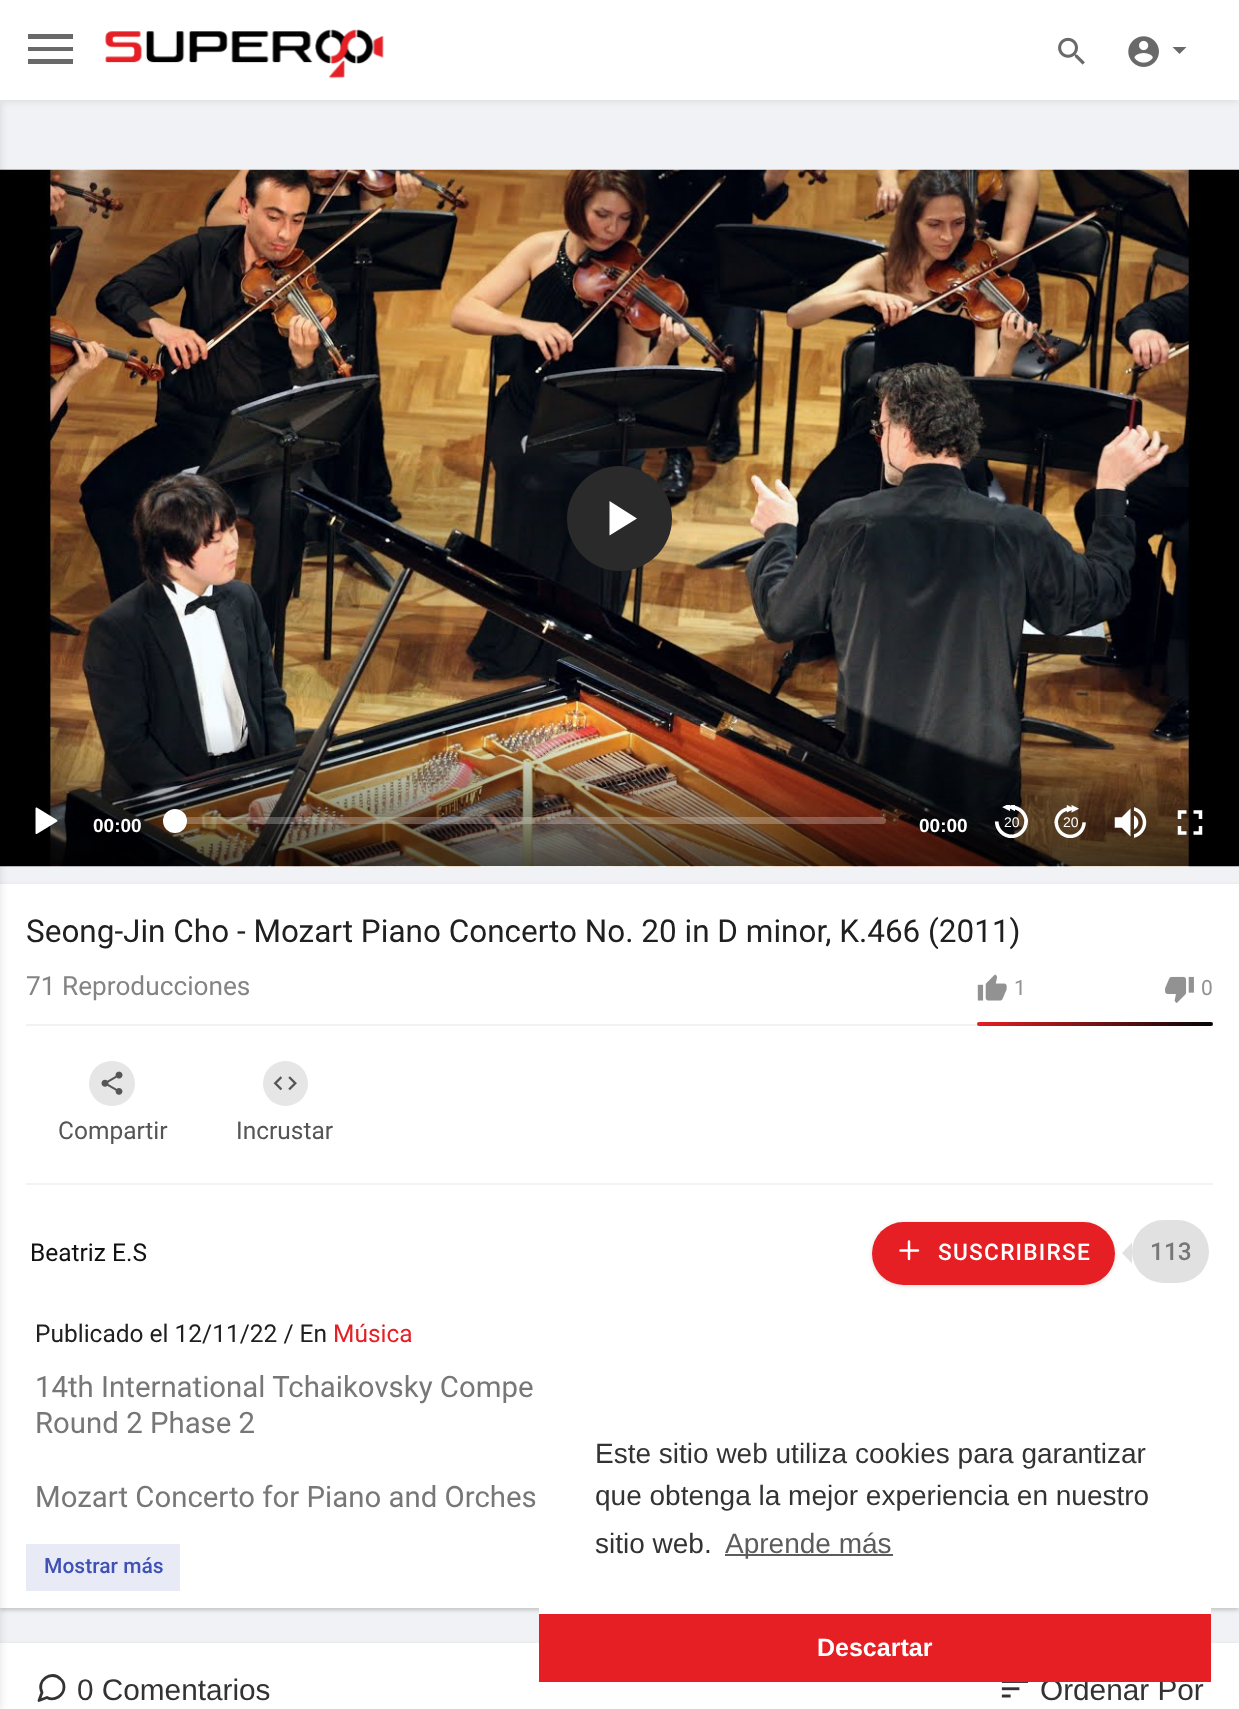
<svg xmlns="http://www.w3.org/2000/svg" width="1239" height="1709">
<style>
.a{font:bold 19px Liberation Sans;fill:#fff}
.b{font:14px Liberation Sans;fill:#fff}
.c{font:31.5px Roboto;fill:#202020}
.d{font:26.25px Roboto;fill:#848484}
.e{font:21px Roboto;fill:#929292}
.f{font:24.5px Roboto;fill:#555}
.g{font:24.5px Roboto;fill:#111}
.h{font:500 22.75px Roboto;letter-spacing:1.25px;fill:#fff}
.i{font:500 24.5px Roboto;fill:#777}
.j{font:24.5px Roboto;fill:#202020}
.k{font:24.5px Roboto;fill:#e51f24}
.l{font:29.4px Roboto;fill:#777}
.m{font:500 21px Roboto;fill:#3f51b5}
.n{font:29.75px Liberation Sans;fill:#333}
.o{font:28px Liberation Sans;fill:#333}
.p{font:28px Liberation Sans;fill:#5c5c5c}
.q{font:bold 25px Liberation Sans;fill:#fff}
</style>
<defs>
<linearGradient id="g1" gradientUnits="userSpaceOnUse" x1="977" y1="1024" x2="1213" y2="1024"><stop offset="0" stop-color="#e51f24"/><stop offset="1" stop-color="#050505"/></linearGradient>
</defs>
<rect width="100%" height="100%" fill="#f0f2f5"/>
<path fill="#0000001f" filter="blur(4.5px)" d="M0 0h1239v100H0z"/>
<image href="4.png" x="0" y="169" width="1239" height="698"/>
<path fill="#00000033" filter="blur(2px)" d="M0 886h1239v724H0z"/>
<path fill="#fff" d="M0 884h1239v724H0z"/>
<path fill="#00000033" filter="blur(2px)" d="M0 1645h1239v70H0z"/>
<path fill="#fff" d="M0 1643h1239v66H0z"/>
<path fill="#0000001f" filter="blur(4.5px)" d="M-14 100h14v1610H-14z"/>
<path fill="#fff" d="M0 0h1239v100H0z"/>
<path fill="#696969" d="M28 34h45v5h-45v-5m0 13h45v4h-45v-4m0 12h45v5h-45z"/>
<image href="1.png" x="105" y="29" width="279" height="50"/>
<image href="2.png" x="1058" y="37" width="27" height="28"/>
<image href="3.png" x="1128" y="36" width="31" height="31"/>
<path fill="#696969" d="M1172.5 47h14l-7 7z"/>
<circle fill="#2a2a2a" cx="619.5" cy="518.5" r="52.5"/>
<path fill="#fff" d="M609.5 501v34.5l27.5-17z"/>
<image href="5.png" x="35" y="807" width="23" height="28"/>
<rect fill="#ffffff40" x="175" y="817" width="711" height="7" rx="3.5"/>
<circle fill="#fff" cx="175" cy="821" r="12"/>
<image href="6.png" x="994" y="805" width="35" height="33"/>
<image href="7.png" x="1054" y="805" width="32" height="33"/>
<image href="8.png" x="1114" y="807" width="33" height="31"/>
<image href="9.png" x="1177" y="810" width="26" height="25"/>
<image href="10.png" x="977" y="974" width="30" height="27"/>
<image href="11.png" x="1165" y="976" width="29" height="27"/>
<path fill="#f2f2f2" d="M26 1024h1187v2H26z"/>
<rect fill="url(#g1)" x="977" y="1022" width="236" height="4" rx="2"/>
<rect fill="#e6e6e6" x="89" y="1061" width="46" height="45" rx="22.5"/>
<image href="12.png" x="101" y="1071" width="22" height="24"/>
<circle fill="#e6e6e6" cx="285.5" cy="1083.5" r="22.5"/>
<image href="13.png" x="273" y="1076" width="24" height="15"/>
<path fill="#f3f3f3" d="M26 1183h1187v2H26z"/>
<rect fill="#00000026" filter="blur(2px)" x="872" y="1223" width="243" height="63" rx="31.5"/>
<rect fill="#e51f24" x="872" y="1222" width="243" height="63" rx="31.5"/>
<path fill="none" stroke="#fff" stroke-width="2.5" stroke-linecap="round" stroke-linejoin="round" d="M909 1241.5v17.5m-8.5-8.5h17.5"/>
<path fill="#e1e1e1" d="M1132 1242.5v21l-10-10.5z"/>
<rect fill="#e1e1e1" x="1132" y="1220" width="77" height="63" rx="31.5"/>
<path fill="#e8eaf6" d="M26 1544h154v47H26z"/>
<path fill="none" stroke="#333" stroke-width="2.8" stroke-linecap="round" stroke-linejoin="round" d="M64 1687c0 8.5-9.5 14.5-17 10.5l-8 3l3-8c-6-11.5 9-23 18.5-13.5c2.5 2 3.5 5 3.5 8z"/>
<image href="14.png" x="1001" y="1682" width="28" height="16"/>
<path fill="#fff" d="M539 1608h672v6H539z"/>
<path fill="#5c5c5c" d="M725 1554h168v2H725z"/>
<text class="a" x="93" y="832">00:00</text>
<text class="a" x="919" y="832">00:00</text>
<text class="b" x="1004" y="827">20</text>
<text class="b" x="1063" y="827">20</text>
<text class="c" x="26" y="942">Seong-Jin Cho - Mozart Piano Concerto No. 20 in D minor, K.466 (2011)</text>
<text class="d" x="26" y="995">71 Reproducciones</text>
<text class="e" x="1014" y="995">1</text>
<text class="e" x="1201" y="995">0</text>
<text class="f" x="58" y="1139">Compartir</text>
<text class="f" x="236" y="1139">Incrustar</text>
<text class="g" x="30" y="1261">Beatriz E.S</text>
<text class="h" x="938" y="1260">SUSCRIBIRSE</text>
<text class="i" x="1150" y="1260">113</text>
<text class="j" x="35" y="1342">Publicado el 12/11/22 / En</text>
<text class="k" x="333" y="1342">Música</text>
<text class="l" x="35" y="1397">14th International Tchaikovsky Compe</text>
<text class="l" x="35" y="1433">Round 2 Phase 2</text>
<text class="l" x="35" y="1507">Mozart Concerto for Piano and Orches</text>
<text class="m" x="44" y="1573">Mostrar más</text>
<text class="n" x="77" y="1700">0 Comentarios</text>
<text class="n" x="1040" y="1700">Ordenar Por</text>
<text class="o" x="595" y="1463">Este sitio web utiliza cookies para garantizar</text>
<text class="o" x="595" y="1505">que obtenga la mejor experiencia en nuestro</text>
<text class="o" x="595" y="1553">sitio web.</text>
<text class="p" x="725" y="1553">Aprende más</text>
<path fill="#e51f24" d="M539 1614h672v68H539z"/>
<text class="q" x="817" y="1656">Descartar</text>
</svg>
